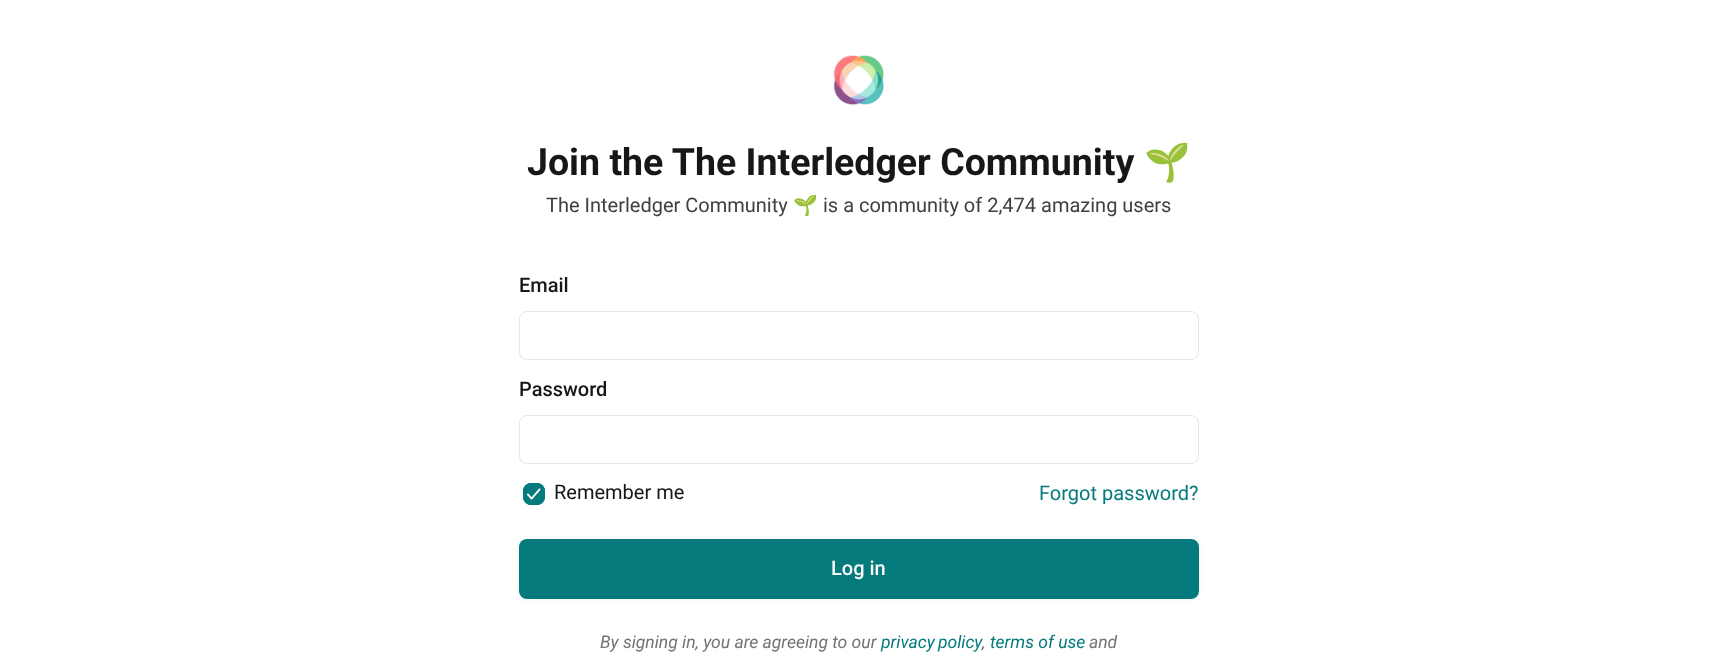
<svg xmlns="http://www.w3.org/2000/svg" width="1717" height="657">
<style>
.a{font:bold 37.5px Roboto;fill:#171717}
.b{font:bold 37.5px Noto Color Emoji;fill:#171717}
.c{font:20px Roboto;fill:#404040}
.d{font:20px Noto Color Emoji;fill:#404040}
.e{font:500 20px Roboto;fill:#171717}
.f{font:20px Roboto;fill:#171717}
.g{font:20px Roboto;fill:#047a7c}
.h{font:500 20px Roboto;fill:#f9f9f9}
.i{font:italic 17.5px Roboto;fill:#737373}
.j{font:italic 17.5px Roboto;fill:#047a7c}
</style>
<rect width="100%" height="100%" fill="#fff"/>
<image href="1.png" x="833" y="55" width="51" height="50"/>
<rect fill="none" stroke="#e5e5e5" x="519.5" y="311.5" width="679" height="48" rx="7.5"/>
<rect fill="none" stroke="#e5e5e5" x="519.5" y="415.5" width="679" height="48" rx="7.5"/>
<rect fill="#047a7c" x="523" y="483" width="22" height="22" rx="8"/>
<image href="2.png" x="527" y="488" width="14" height="12"/>
<rect fill="none" stroke="#047a7c" x="523.5" y="483.5" width="21" height="21" rx="7.5"/>
<rect fill="#0000000d" filter="blur(2px)" x="519" y="540" width="680" height="60" rx="8"/>
<rect fill="#047a7c" x="519" y="539" width="680" height="60" rx="8"/>
<text class="a" x="527" y="175">Join the The Interledger Community</text>
<text class="b" x="1144" y="175">🌱</text>
<text class="c" x="546" y="212">The Interledger Community</text>
<text class="d" x="793" y="212">🌱</text>
<text class="c" x="823" y="212">is a community of 2,474 amazing users</text>
<text class="e" x="519" y="292">Email</text>
<text class="e" x="519" y="396">Password</text>
<text class="f" x="554" y="499">Remember me</text>
<text class="g" x="1039" y="500">Forgot password?</text>
<text class="h" x="831" y="575">Log in</text>
<text class="i" x="600" y="648">By signing in, you are agreeing to our</text>
<text class="j" x="881" y="648" word-spacing="-1">privacy policy</text>
<text class="j" x="990" y="648">terms of use</text>
<text class="i" x="1089" y="648">and</text>
<text class="i" x="982" y="648">,</text>
</svg>
